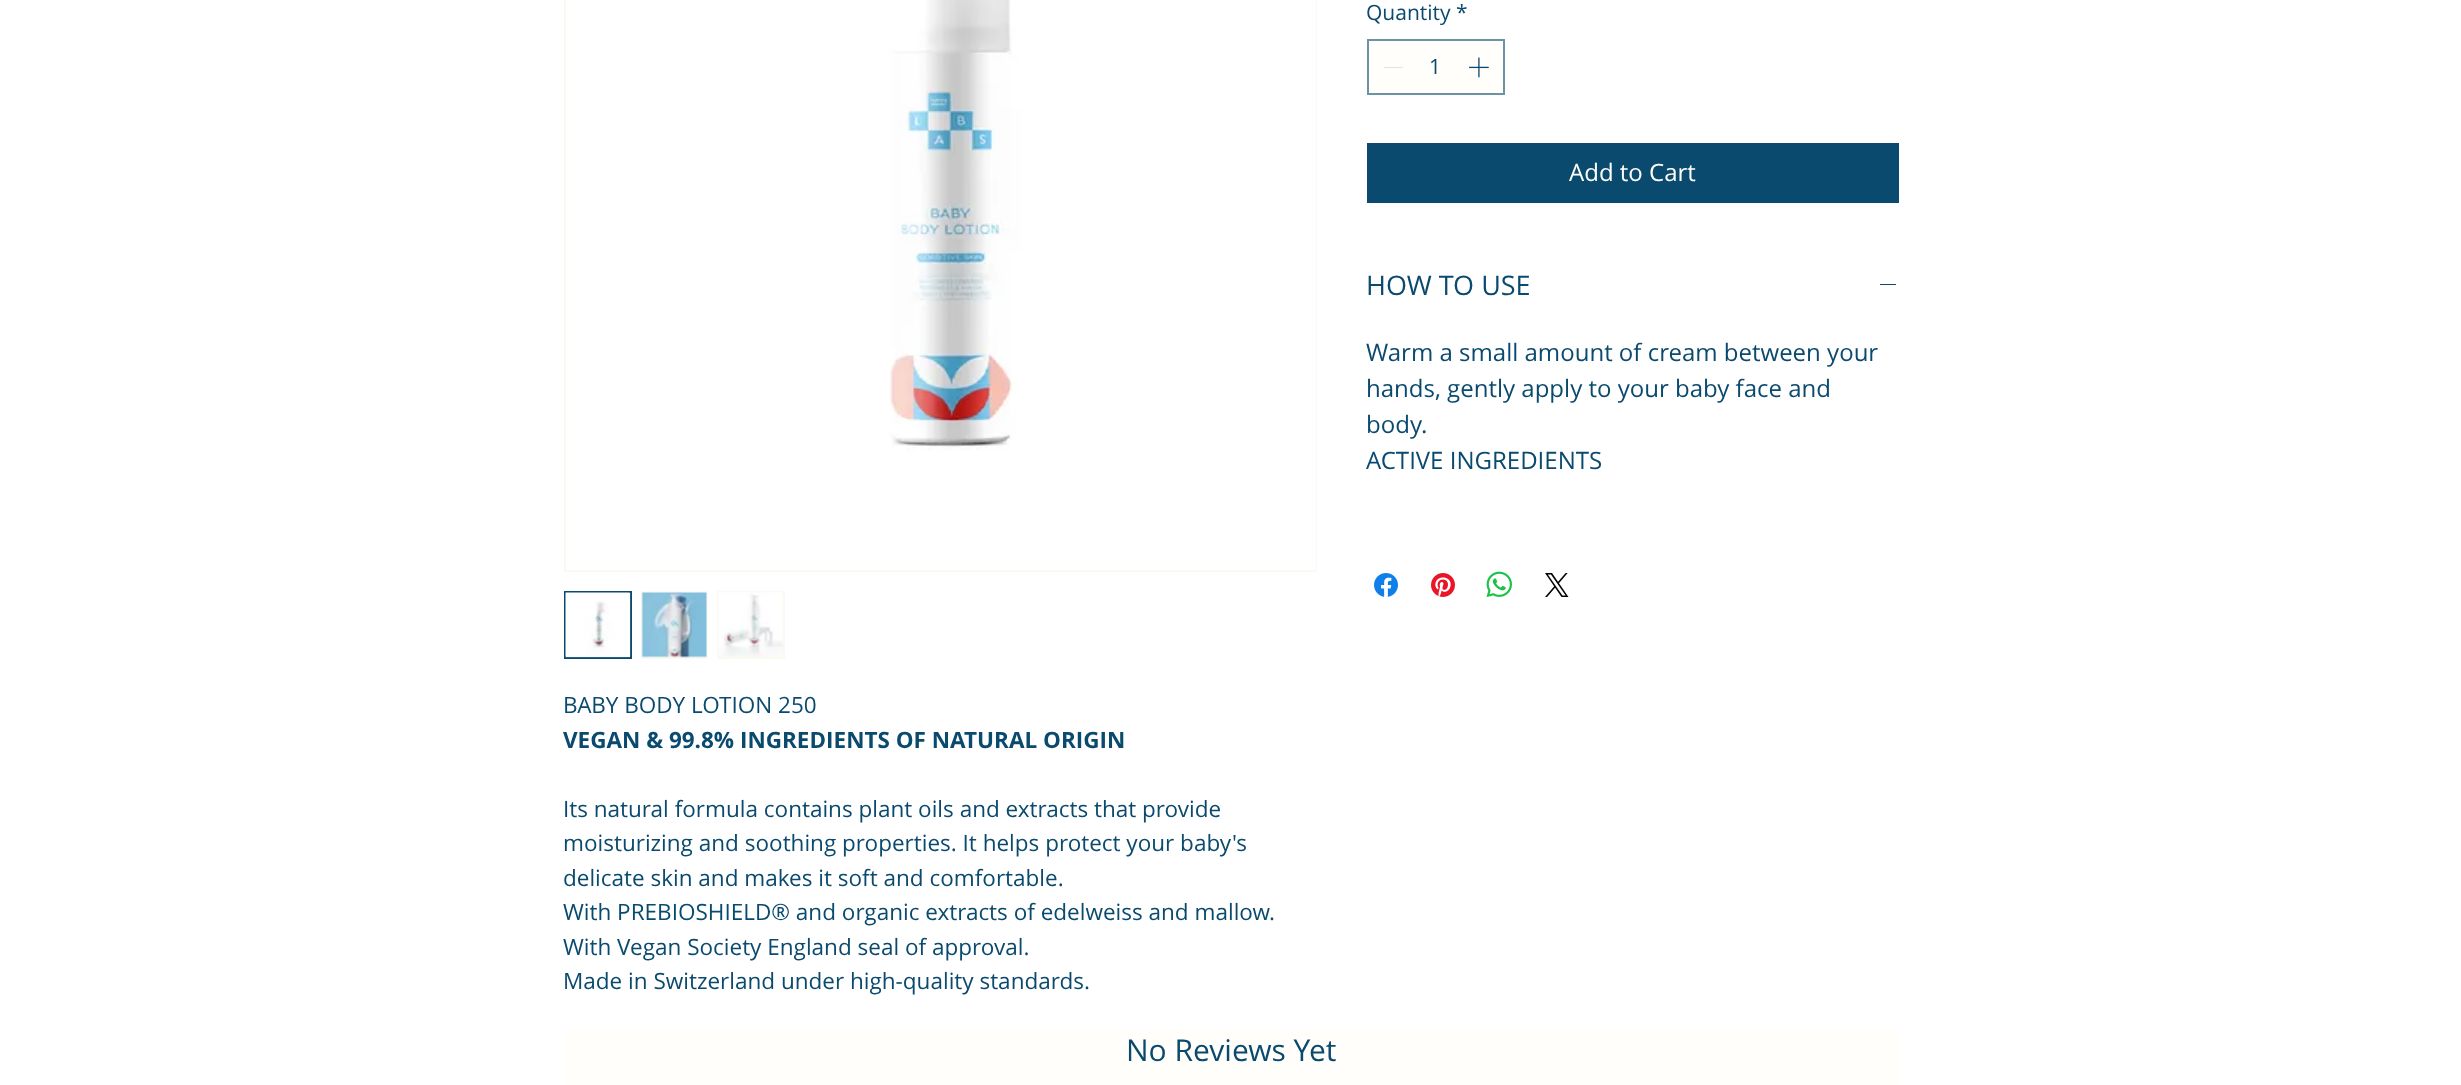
<svg xmlns="http://www.w3.org/2000/svg" width="2461" height="1085">
<style>
.a{font:21px Open Sans;fill:#0a4a6e}
.b{font:24px Open Sans;fill:#fffefa}
.c{font:27px Open Sans;fill:#0a4a6e}
.d{font:24px Open Sans;fill:#0a4a6e}
.e{font:22.5px Open Sans;fill:#0a4a6e}
.f{font:bold 22.5px Open Sans;fill:#0a4a6e}
.g{font:30px Open Sans;fill:#0a4a6e}
</style>
<rect width="100%" height="100%" fill="#fff"/>
<path fill="#fffefa" stroke="#6c92a6" stroke-width="2" d="M1368 40h136v54H1368z"/>
<path fill="#e3e3e1" d="M1384 67h19v1H1384z"/>
<image href="1.png" x="1469" y="57" width="20" height="21"/>
<path fill="#0a4a6e" d="M1367 143h532v60H1367z"/>
<path fill="#0a4a6e" d="M1880 284h16v1H1880z"/>
<image href="2.png" x="1374" y="573" width="24" height="24"/>
<image href="3.png" x="1431" y="573" width="24" height="24"/>
<image href="4.png" x="1486" y="571" width="26" height="27"/>
<image href="5.png" x="1545" y="573" width="24" height="24"/>
<path fill="none" stroke="#fafaf2" stroke-width="2" d="M565 -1h751v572H565z"/>
<image href="6.png" x="889" y="0" width="427" height="569"/>
<path fill="#fafaf2" stroke="#0a4a6e" stroke-width="2" d="M565 592h66v66H565z"/>
<image href="7.png" x="565" y="592" width="66" height="66"/>
<path fill="#fafaf2" d="M641 591h67v68H641z"/>
<image href="8.png" x="641" y="592" width="66" height="66"/>
<path fill="#fafaf2" d="M717 591h68v68H717z"/>
<image href="9.png" x="718" y="592" width="65" height="65"/>
<path fill="#fffefa" d="M564 1029h1335v56H564z"/>
<text class="a" x="1366" y="20">Quantity</text>
<text class="a" x="1456" y="20">*</text>
<text class="a" x="1429" y="74">1</text>
<text class="b" x="1569" y="181">Add to Cart</text>
<text class="c" x="1366" y="295">HOW TO USE</text>
<text class="d" x="1366" y="361">Warm a small amount of cream between your</text>
<text class="d" x="1366" y="397">hands, gently apply to your baby face and</text>
<text class="d" x="1366" y="433">body.</text>
<text class="d" x="1366" y="469">ACTIVE INGREDIENTS</text>
<text class="e" x="563" y="713">BABY BODY LOTION 250</text>
<text class="f" x="563" y="748">VEGAN &amp; 99.8% INGREDIENTS OF NATURAL ORIGIN</text>
<text class="e" x="563" y="817">Its natural formula contains plant oils and extracts that provide</text>
<text class="e" x="563" y="851">moisturizing and soothing properties. It helps protect your baby's</text>
<text class="e" x="563" y="886">delicate skin and makes it soft and comfortable.</text>
<text class="e" x="563" y="920">With PREBIOSHIELD® and organic extracts of edelweiss and mallow.</text>
<text class="e" x="563" y="955">With Vegan Society England seal of approval.</text>
<text class="e" x="563" y="989">Made in Switzerland under high-quality standards.</text>
<text class="g" x="1126" y="1061">No Reviews Yet</text>
</svg>
